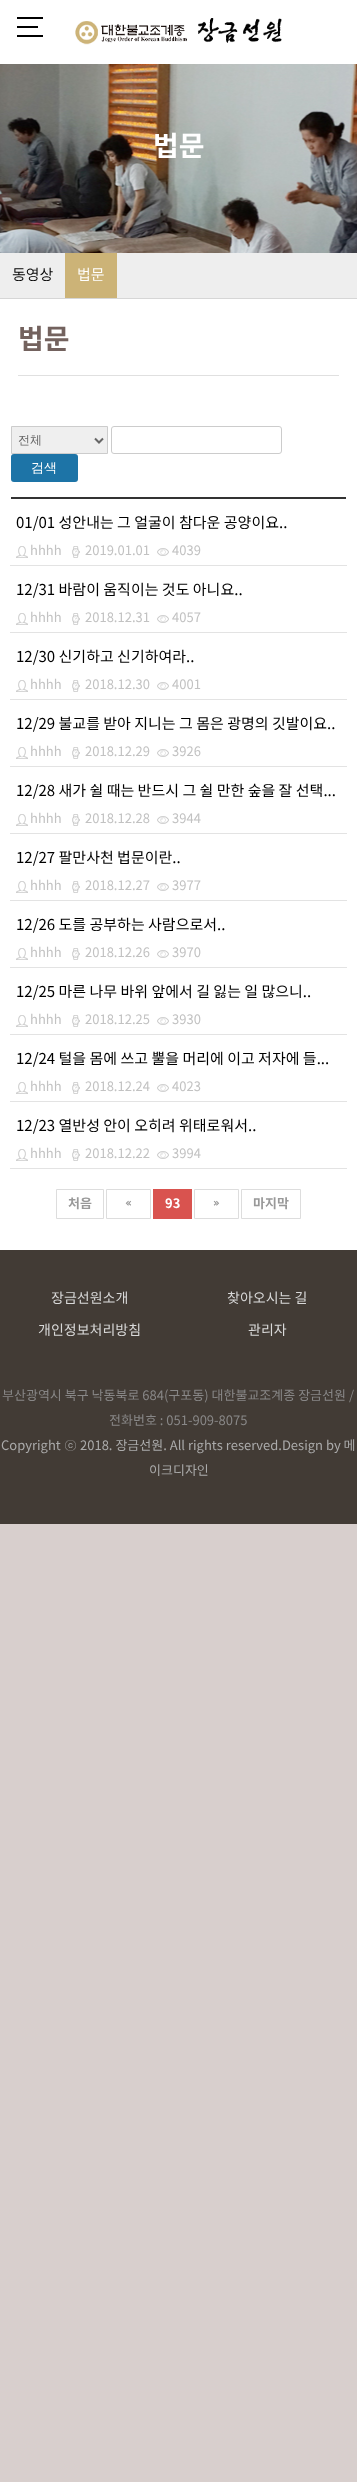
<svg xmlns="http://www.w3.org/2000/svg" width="357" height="2482">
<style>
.a{font:bold 28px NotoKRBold;fill:#fff}
.b{font:300 15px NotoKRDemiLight;fill:#000}
.c{font:300 15px NotoKRDemiLight;fill:#fff}
.d{font:bold 28px NotoKRBold;fill:#73625e}
.e{font:500 12px WenQuanYi Zen Hei;fill:#666}
.f{font:500 13px WenQuanYi Zen Hei;fill:#fff}
.g{font:15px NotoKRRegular;fill:#000}
.h{font:13px NotoKRRegular;fill:#c2c2c2}
.i{font:bold 13px NotoKRBold;fill:#999}
.j{font:bold 13px Dotum;fill:#999}
.k{font:bold 13px NotoKRBold;fill:#fff}
.l{font:14px NotoKRRegular;fill:#d8d8d8}
.m{font:13px NotoKRRegular;fill:#888787}
.n{font:13px NotoKRRegular;fill:#ababab}
.o{font:13px Dotum;fill:#ababab}
</style>
<rect width="100%" height="100%" fill="#d8cfcd"/>
<path fill="#fff" d="M0 0h357v64H0z"/>
<image href="1.png" x="75" y="18" width="207" height="27"/>
<path fill="#000" d="M17 17h26v2H17z"/>
<path fill="#000" d="M17 26h21v2H17z"/>
<path fill="#000" d="M17 35h26v2H17z"/>
<image href="2.png" x="0" y="64" width="357" height="189"/>
<path fill="#d6d6d6" d="M0 298h357v1H0z"/>
<path fill="#eee" d="M0 253h357v45H0z"/>
<path fill="#ccb377" d="M65 253h52v45H65z"/>
<path fill="#fff" d="M0 299h357v951H0z"/>
<path fill="#e0e0e0" d="M18 375h321v1H18z"/>
<path fill="#efefef" stroke="#ccc" d="M11.5 426.5h96v27H11.5z"/>
<path fill="none" stroke="#666" stroke-width="2" d="M95 438.5l4 4l4-4"/>
<rect fill="none" stroke="#ccc" x="111.5" y="426.5" width="170" height="27" rx="2.5"/>
<rect fill="#1d74a7" x="11" y="454" width="67" height="28" rx="3"/>
<path fill="#333" d="M11 497h335v2H11z"/>
<path fill="#e3e3e3" d="M10 565h337v1H10z"/>
<image href="3.png" x="16" y="546" width="12" height="12"/>
<image href="4.png" x="72" y="546" width="8" height="12"/>
<image href="5.png" x="157" y="548" width="12" height="8"/>
<path fill="#e3e3e3" d="M10 632h337v1H10z"/>
<image href="3.png" x="16" y="613" width="12" height="12"/>
<image href="4.png" x="72" y="613" width="8" height="12"/>
<image href="5.png" x="157" y="615" width="12" height="8"/>
<path fill="#e3e3e3" d="M10 699h337v1H10z"/>
<image href="3.png" x="16" y="680" width="12" height="12"/>
<image href="4.png" x="72" y="680" width="8" height="12"/>
<image href="5.png" x="157" y="682" width="12" height="8"/>
<path fill="#e3e3e3" d="M10 766h337v1H10z"/>
<image href="3.png" x="16" y="747" width="12" height="12"/>
<image href="4.png" x="72" y="747" width="8" height="12"/>
<image href="5.png" x="157" y="749" width="12" height="8"/>
<path fill="#e3e3e3" d="M10 833h337v1H10z"/>
<image href="3.png" x="16" y="814" width="12" height="12"/>
<image href="4.png" x="72" y="814" width="8" height="12"/>
<image href="5.png" x="157" y="816" width="12" height="8"/>
<path fill="#e3e3e3" d="M10 900h337v1H10z"/>
<image href="3.png" x="16" y="881" width="12" height="12"/>
<image href="4.png" x="72" y="881" width="8" height="12"/>
<image href="5.png" x="157" y="883" width="12" height="8"/>
<path fill="#e3e3e3" d="M10 967h337v1H10z"/>
<image href="3.png" x="16" y="948" width="12" height="12"/>
<image href="4.png" x="72" y="948" width="8" height="12"/>
<image href="5.png" x="157" y="950" width="12" height="8"/>
<path fill="#e3e3e3" d="M10 1034h337v1H10z"/>
<image href="3.png" x="16" y="1015" width="12" height="12"/>
<image href="4.png" x="72" y="1015" width="8" height="12"/>
<image href="5.png" x="157" y="1017" width="12" height="8"/>
<path fill="#e3e3e3" d="M10 1101h337v1H10z"/>
<image href="3.png" x="16" y="1082" width="12" height="12"/>
<image href="4.png" x="72" y="1082" width="8" height="12"/>
<image href="5.png" x="157" y="1084" width="12" height="8"/>
<path fill="#e3e3e3" d="M10 1168h337v1H10z"/>
<image href="3.png" x="16" y="1149" width="12" height="12"/>
<image href="4.png" x="72" y="1149" width="8" height="12"/>
<image href="5.png" x="157" y="1151" width="12" height="8"/>
<path fill="none" stroke="#ddd" d="M56.5 1189.5h47v29H56.5z"/>
<path fill="none" stroke="#ddd" d="M106.5 1189.5h44v29H106.5z"/>
<path fill="#d9534f" d="M153 1189h39v30H153z"/>
<path fill="none" stroke="#ddd" d="M194.5 1189.5h44v29H194.5z"/>
<path fill="none" stroke="#ddd" d="M241.5 1189.5h59v29H241.5z"/>
<path fill="#423b35" d="M0 1250h357v274H0z"/>
<text class="a" x="153" y="156">법문</text>
<text class="b" x="12" y="280">동영상</text>
<text class="c" x="77" y="280">법문</text>
<text class="d" x="18" y="349">법문</text>
<text class="e" x="18" y="444">전체</text>
<text class="f" x="31" y="472">검색</text>
<text class="g" x="16" y="528">01/01 성안내는 그 얼굴이 참다운 공양이요..</text>
<text class="h" x="30" y="555">hhhh</text>
<text class="h" x="85" y="555">2019.01.01</text>
<text class="h" x="172" y="555">4039</text>
<text class="g" x="16" y="595">12/31 바람이 움직이는 것도 아니요..</text>
<text class="h" x="30" y="622">hhhh</text>
<text class="h" x="85" y="622">2018.12.31</text>
<text class="h" x="172" y="622">4057</text>
<text class="g" x="16" y="662">12/30 신기하고 신기하여라..</text>
<text class="h" x="30" y="689">hhhh</text>
<text class="h" x="85" y="689">2018.12.30</text>
<text class="h" x="172" y="689">4001</text>
<text class="g" x="16" y="729">12/29 불교를 받아 지니는 그 몸은 광명의 깃발이요..</text>
<text class="h" x="30" y="756">hhhh</text>
<text class="h" x="85" y="756">2018.12.29</text>
<text class="h" x="172" y="756">3926</text>
<text class="g" x="16" y="796">12/28 새가 쉴 때는 반드시 그 쉴 만한 숲을 잘 선택...</text>
<text class="h" x="30" y="823">hhhh</text>
<text class="h" x="85" y="823">2018.12.28</text>
<text class="h" x="172" y="823">3944</text>
<text class="g" x="16" y="863">12/27 팔만사천 법문이란..</text>
<text class="h" x="30" y="890">hhhh</text>
<text class="h" x="85" y="890">2018.12.27</text>
<text class="h" x="172" y="890">3977</text>
<text class="g" x="16" y="930">12/26 도를 공부하는 사람으로서..</text>
<text class="h" x="30" y="957">hhhh</text>
<text class="h" x="85" y="957">2018.12.26</text>
<text class="h" x="172" y="957">3970</text>
<text class="g" x="16" y="997">12/25 마른 나무 바위 앞에서 길 잃는 일 많으니..</text>
<text class="h" x="30" y="1024">hhhh</text>
<text class="h" x="85" y="1024">2018.12.25</text>
<text class="h" x="172" y="1024">3930</text>
<text class="g" x="16" y="1064">12/24 털을 몸에 쓰고 뿔을 머리에 이고 저자에 들...</text>
<text class="h" x="30" y="1091">hhhh</text>
<text class="h" x="85" y="1091">2018.12.24</text>
<text class="h" x="172" y="1091">4023</text>
<text class="g" x="16" y="1131">12/23 열반성 안이 오히려 위태로워서..</text>
<text class="h" x="30" y="1158">hhhh</text>
<text class="h" x="85" y="1158">2018.12.22</text>
<text class="h" x="172" y="1158">3994</text>
<text class="i" x="68" y="1208">처음</text>
<text class="j" x="125" y="1208">«</text>
<text class="k" x="165" y="1208">93</text>
<text class="j" x="213" y="1208">»</text>
<text class="i" x="253" y="1208">마지막</text>
<text class="l" x="51" y="1303">장금선원소개</text>
<text class="l" x="227" y="1303">찾아오시는 길</text>
<text class="l" x="38" y="1335">개인정보처리방침</text>
<text class="l" x="248" y="1335">관리자</text>
<text class="m" x="2" y="1400">부산광역시 북구 낙동북로 684(구포동) 대한불교조계종 장금선원 /</text>
<text class="m" x="109" y="1425">전화번호 : 051-909-8075</text>
<text class="n" x="1" y="1450">Copyright</text>
<text class="o" x="64" y="1450">ⓒ</text>
<text class="n" x="80" y="1450">2018. 장금선원. All rights reserved.Design by 메</text>
<text class="n" x="149" y="1475">이크디자인</text>
</svg>
